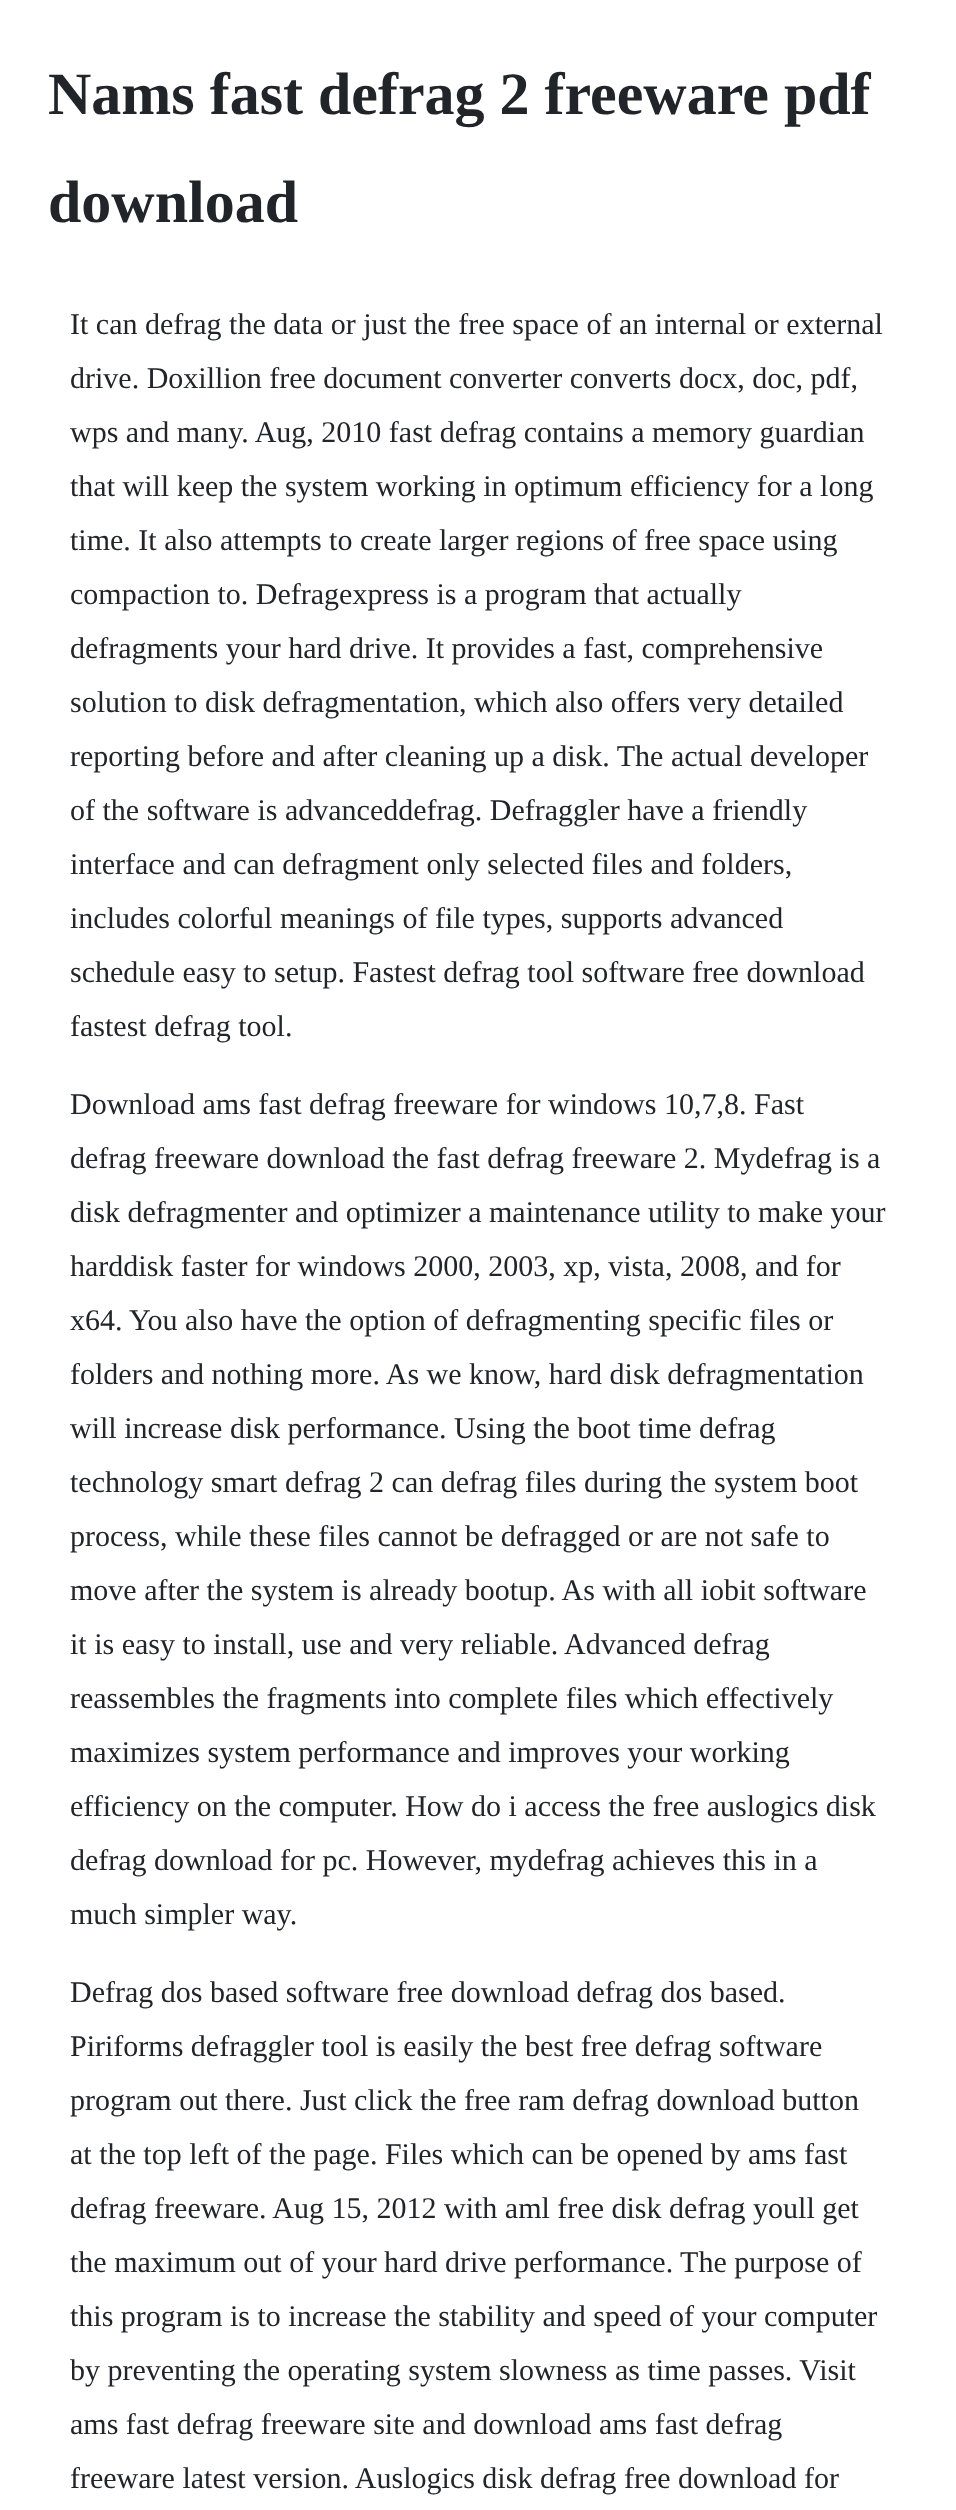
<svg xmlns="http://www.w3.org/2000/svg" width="956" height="2510">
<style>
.a{font:bold 60px Liberation Serif;fill:#212529}
.b{font:30px Liberation Serif;fill:#212529}
</style>
<rect width="100%" height="100%" fill="#fff"/>
<text class="a" x="48" y="114">Nams fast defrag 2 freeware pdf</text>
<text class="a" x="48" y="222">download</text>
<text class="b" x="70" y="334">It can defrag the data or just the free space of an internal or external</text>
<text class="b" x="70" y="388">drive. Doxillion free document converter converts docx, doc, pdf,</text>
<text class="b" x="70" y="442">wps and many. Aug, 2010 fast defrag contains a memory guardian</text>
<text class="b" x="70" y="496">that will keep the system working in optimum efficiency for a long</text>
<text class="b" x="70" y="550">time. It also attempts to create larger regions of free space using</text>
<text class="b" x="70" y="604">compaction to. Defragexpress is a program that actually</text>
<text class="b" x="70" y="658">defragments your hard drive. It provides a fast, comprehensive</text>
<text class="b" x="70" y="712">solution to disk defragmentation, which also offers very detailed</text>
<text class="b" x="70" y="766">reporting before and after cleaning up a disk. The actual developer</text>
<text class="b" x="70" y="820">of the software is advanceddefrag. Defraggler have a friendly</text>
<text class="b" x="70" y="874">interface and can defragment only selected files and folders,</text>
<text class="b" x="70" y="928">includes colorful meanings of file types, supports advanced</text>
<text class="b" x="70" y="982">schedule easy to setup. Fastest defrag tool software free download</text>
<text class="b" x="70" y="1036">fastest defrag tool.</text>
<text class="b" x="70" y="1114">Download ams fast defrag freeware for windows 10,7,8. Fast</text>
<text class="b" x="70" y="1168">defrag freeware download the fast defrag freeware 2. Mydefrag is a</text>
<text class="b" x="70" y="1222">disk defragmenter and optimizer a maintenance utility to make your</text>
<text class="b" x="70" y="1276">harddisk faster for windows 2000, 2003, xp, vista, 2008, and for</text>
<text class="b" x="70" y="1330">x64. You also have the option of defragmenting specific files or</text>
<text class="b" x="70" y="1384">folders and nothing more. As we know, hard disk defragmentation</text>
<text class="b" x="70" y="1438">will increase disk performance. Using the boot time defrag</text>
<text class="b" x="70" y="1492">technology smart defrag 2 can defrag files during the system boot</text>
<text class="b" x="70" y="1546">process, while these files cannot be defragged or are not safe to</text>
<text class="b" x="70" y="1600">move after the system is already bootup. As with all iobit software</text>
<text class="b" x="70" y="1654">it is easy to install, use and very reliable. Advanced defrag</text>
<text class="b" x="70" y="1708">reassembles the fragments into complete files which effectively</text>
<text class="b" x="70" y="1762">maximizes system performance and improves your working</text>
<text class="b" x="70" y="1816">efficiency on the computer. How do i access the free auslogics disk</text>
<text class="b" x="70" y="1870">defrag download for pc. However, mydefrag achieves this in a</text>
<text class="b" x="70" y="1924">much simpler way.</text>
<text class="b" x="70" y="2002">Defrag dos based software free download defrag dos based.</text>
<text class="b" x="70" y="2056">Piriforms defraggler tool is easily the best free defrag software</text>
<text class="b" x="70" y="2110">program out there. Just click the free ram defrag download button</text>
<text class="b" x="70" y="2164">at the top left of the page. Files which can be opened by ams fast</text>
<text class="b" x="70" y="2218">defrag freeware. Aug 15, 2012 with aml free disk defrag youll get</text>
<text class="b" x="70" y="2272">the maximum out of your hard drive performance. The purpose of</text>
<text class="b" x="70" y="2326">this program is to increase the stability and speed of your computer</text>
<text class="b" x="70" y="2380">by preventing the operating system slowness as time passes. Visit</text>
<text class="b" x="70" y="2434">ams fast defrag freeware site and download ams fast defrag</text>
<text class="b" x="70" y="2488">freeware latest version. Auslogics disk defrag free download for</text>
</svg>
